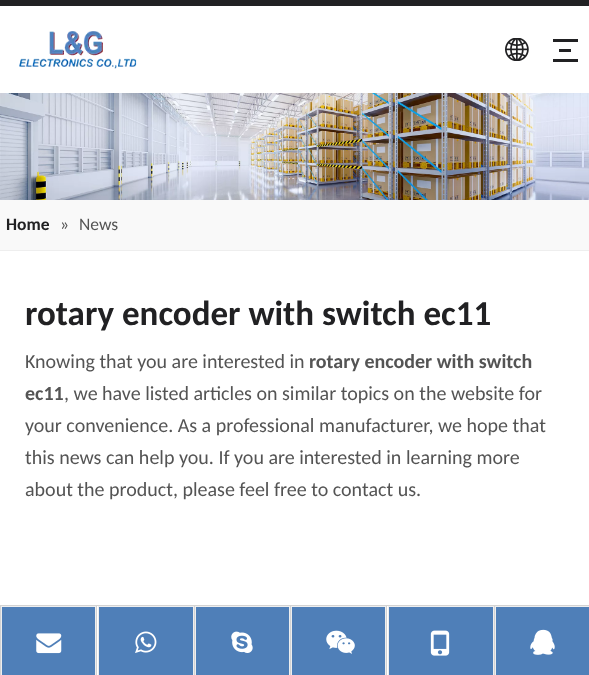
<svg xmlns="http://www.w3.org/2000/svg" width="589" height="675">
<style>
.a{font:bold 17.5px Carlito;fill:#212123}
.b{font:17.5px Carlito;fill:#545454}
.c{font:bold 35px Carlito;fill:#212123}
.d{font:20px Carlito;fill:#545454}
.e{font:bold 20px Carlito;fill:#545454}
</style>
<rect width="100%" height="100%" fill="#fff"/>
<path fill="#212123" d="M0 0h589v6H0z"/>
<image href="1.png" x="19" y="31" width="118" height="38"/>
<image href="2.png" x="505" y="38" width="24" height="23"/>
<path fill="#212123" d="M553 39h25v3H553z"/>
<path fill="#212123" d="M559 49h12v3H559z"/>
<path fill="#212123" d="M553 59h25v3H553z"/>
<image href="3.png" x="0" y="93" width="589" height="107"/>
<path fill="#f9f9f9" d="M0 200h589v50H0z"/>
<path fill="#eee" d="M0 250h589v1H0z"/>
<path fill="#d3d3d3" d="M0 605h589v1H0z"/>
<path fill="#d3d3d3" d="M0 606h1v69H0z"/>
<path fill="#4f7fb8" d="M2 607h93v68H2z"/>
<path fill="#eee" d="M1 606h95v1H1z"/>
<path fill="#eee" d="M95 606h1v69H95z"/>
<path fill="#eee" d="M1 606h1v69H1z"/>
<image href="4.png" x="36" y="633" width="26" height="21"/>
<path fill="#d3d3d3" d="M96 606h1v69H96z"/>
<path fill="#4f7fb8" d="M99 607h94v68H99z"/>
<path fill="#eee" d="M98 606h96v1H98z"/>
<path fill="#eee" d="M193 606h1v69H193z"/>
<path fill="#eee" d="M98 606h1v69H98z"/>
<image href="5.png" x="135" y="631" width="22" height="22"/>
<path fill="#d3d3d3" d="M194 606h1v69H194z"/>
<path fill="#4f7fb8" d="M196 607h93v68H196z"/>
<path fill="#eee" d="M195 606h95v1H195z"/>
<path fill="#eee" d="M289 606h1v69H289z"/>
<path fill="#eee" d="M195 606h1v69H195z"/>
<image href="6.png" x="231" y="631" width="22" height="22"/>
<path fill="#d3d3d3" d="M290 606h1v69H290z"/>
<path fill="#4f7fb8" d="M292 607h93v68H292z"/>
<path fill="#eee" d="M291 606h95v1H291z"/>
<path fill="#eee" d="M385 606h1v69H385z"/>
<path fill="#eee" d="M291 606h1v69H291z"/>
<image href="7.png" x="326" y="630" width="29" height="24"/>
<path fill="#d3d3d3" d="M386 606h1v69H386z"/>
<path fill="#4f7fb8" d="M389 607h104v68H389z"/>
<path fill="#eee" d="M388 606h106v1H388z"/>
<path fill="#eee" d="M493 606h1v69H493z"/>
<path fill="#eee" d="M388 606h1v69H388z"/>
<image href="8.png" x="430" y="630" width="20" height="26"/>
<path fill="#d3d3d3" d="M494 606h1v69H494z"/>
<path fill="#4f7fb8" stroke="#eee" d="M495.5 606.5h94v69H495.5z"/>
<image href="9.png" x="530" y="629" width="25" height="26"/>
<text class="a" x="6" y="230">Home</text>
<text class="b" x="60" y="230">»</text>
<text class="b" x="79" y="230">News</text>
<text class="c" x="25" y="325">rotary encoder with switch ec11</text>
<text class="d" x="25" y="368">Knowing that you are interested in</text>
<text class="e" x="309" y="368">rotary encoder with switch</text>
<text class="e" x="25" y="400">ec11</text>
<text class="d" x="64" y="400">, we have listed articles on similar topics on the website for</text>
<text class="d" x="25" y="432">your convenience. As a professional manufacturer, we hope that</text>
<text class="d" x="25" y="464">this news can help you. If you are interested in learning more</text>
<text class="d" x="25" y="496">about the product, please feel free to contact us.</text>
</svg>
